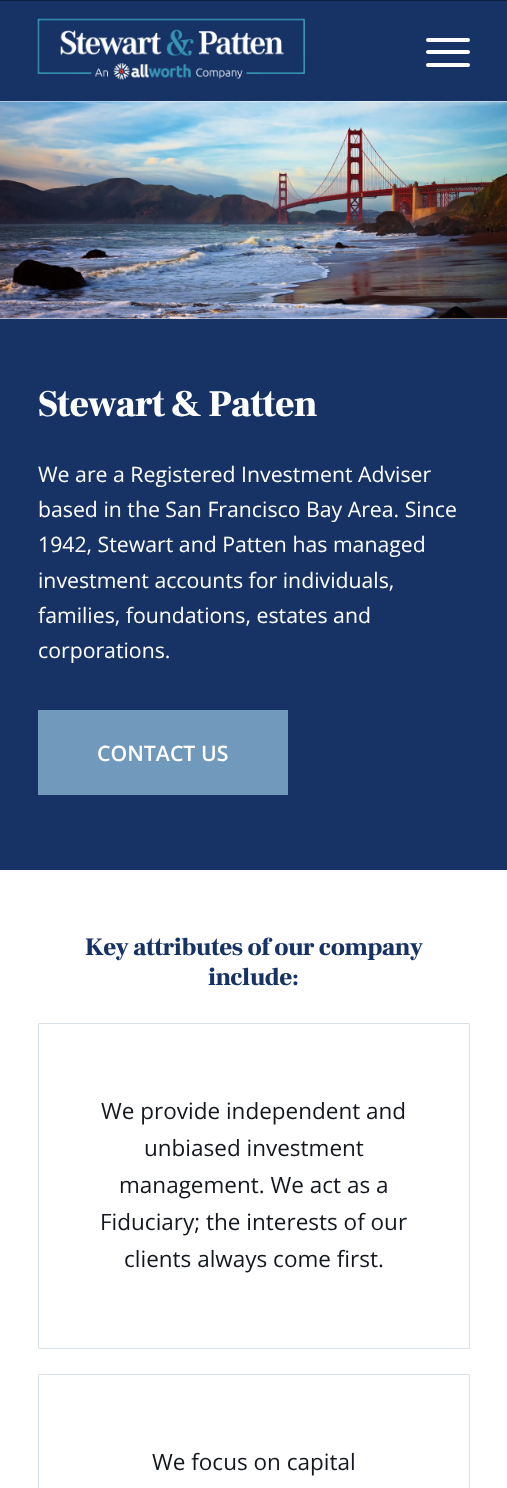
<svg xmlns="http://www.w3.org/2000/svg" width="507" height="1488">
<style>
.a{font:900 37.5px Frank Ruhl Libre;letter-spacing:-0.75px;fill:#fff}
.b{font:21.25px Open Sans;fill:#fff}
.c{font:600 21.25px Open Sans;fill:#fff}
.d{font:900 25px Frank Ruhl Libre;letter-spacing:-0.5px;fill:#173366}
.e{font:22.5px Open Sans;fill:#13171e}
</style>
<rect width="100%" height="100%" fill="#173366"/>
<path fill="#0c2142" d="M0 0h507v1H0z"/>
<image href="1.png" x="37" y="18" width="268" height="62"/>
<rect fill="#fff" x="426" y="50" width="44" height="4" rx="2"/>
<rect fill="#fff" x="426" y="38" width="44" height="4" rx="2"/>
<rect fill="#fff" x="426" y="63" width="44" height="4" rx="2"/>
<path fill="#fff" d="M0 101h507v218H0z"/>
<image href="2.png" x="0" y="101" width="507" height="218"/>
<path fill="#7199bc" d="M38 710h250v85H38z"/>
<path fill="#fff" d="M0 870h507v618H0z"/>
<path fill="none" stroke="#dae2e8" d="M38.5 1023.5h431v325H38.5z"/>
<path fill="none" stroke="#dae2e8" d="M38.5 1374.5h431v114H38.5z"/>
<text class="a" x="38" y="416">Stewart &amp; Patten</text>
<text class="b" x="38" y="482">We are a Registered Investment Adviser</text>
<text class="b" x="38" y="517">based in the San Francisco Bay Area. Since</text>
<text class="b" x="38" y="552">1942, Stewart and Patten has managed</text>
<text class="b" x="38" y="588">investment accounts for individuals,</text>
<text class="b" x="38" y="623">families, foundations, estates and</text>
<text class="b" x="38" y="658">corporations.</text>
<text class="c" x="97" y="761">CONTACT US</text>
<text class="d" x="85" y="955">Key attributes of our company</text>
<text class="d" x="208" y="985">include:</text>
<text class="e" x="101" y="1119">We provide independent and</text>
<text class="e" x="144" y="1156">unbiased investment</text>
<text class="e" x="119" y="1193">management. We act as a</text>
<text class="e" x="100" y="1230">Fiduciary; the interests of our</text>
<text class="e" x="124" y="1267">clients always come first.</text>
<text class="e" x="152" y="1470">We focus on capital</text>
</svg>
